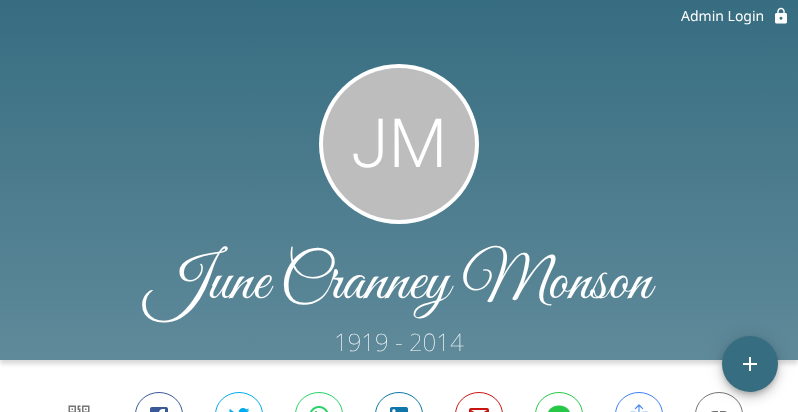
<svg xmlns="http://www.w3.org/2000/svg" width="798" height="412">
<style>
.a{font:14px Noto Sans;fill:#fff}
.b{font:300 68px Roboto;fill:#fff}
.c{font:64px Great Vibes;fill:#fff}
.d{font:100 24px Noto Sans;fill:#fff}
</style>
<defs>
<linearGradient id="g1" gradientUnits="userSpaceOnUse" x1="399" y1="0" x2="399" y2="360"><stop offset="0" stop-color="#376d81"/><stop offset="1" stop-color="#5f8a9a"/></linearGradient>
</defs>
<rect width="100%" height="100%" fill="#fff"/>
<path fill="#00000026" filter="blur(2px)" d="M0 4h798v360H0z"/>
<path fill="url(#g1)" d="M0 0h798v360H0z"/>
<image href="1.png" x="775" y="7" width="12" height="17"/>
<circle fill="#fff" cx="399" cy="144" r="80"/>
<circle fill="#bdbdbd" cx="399" cy="144" r="76"/>
<image href="2.png" x="68" y="405" width="22" height="7"/>
<rect fill="none" stroke="#3b5998" x="135.5" y="392.5" width="47" height="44" rx="23.5"/>
<image href="3.png" x="150" y="407" width="18" height="5"/>
<rect fill="none" stroke="#00acee" x="215.5" y="392.5" width="47" height="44" rx="23.5"/>
<image href="4.png" x="229" y="408" width="21" height="4"/>
<rect fill="none" stroke="#25d366" x="295.5" y="392.5" width="47" height="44" rx="23.5"/>
<image href="5.png" x="309" y="406" width="20" height="6"/>
<rect fill="none" stroke="#0e76a8" x="375.5" y="392.5" width="47" height="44" rx="23.5"/>
<image href="6.png" x="390" y="407" width="18" height="5"/>
<rect fill="none" stroke="#c71610" x="455.5" y="392.5" width="47" height="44" rx="23.5"/>
<image href="7.png" x="469" y="408" width="20" height="4"/>
<rect fill="none" stroke="#27c848" x="535.5" y="392.5" width="47" height="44" rx="23.5"/>
<image href="8.png" x="548" y="405" width="22" height="7"/>
<rect fill="none" stroke="#3e80f5" x="615.5" y="392.5" width="47" height="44" rx="23.5"/>
<image href="9.png" x="630" y="404" width="18" height="8"/>
<rect fill="none" stroke="#757575" x="695.5" y="392.5" width="47" height="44" rx="23.5"/>
<image href="10.png" x="711" y="411" width="16" height="1"/>
<rect fill="#0000001f" filter="blur(9px)" x="722" y="337" width="56" height="56" rx="28"/>
<rect fill="#00000024" filter="blur(5px)" x="722" y="342" width="56" height="56" rx="28"/>
<rect fill="#00000033" filter="blur(2.5px)" x="723" y="340" width="54" height="54" rx="27"/>
<circle fill="#376d81" cx="750" cy="364" r="28"/>
<image href="11.png" x="743" y="357" width="14" height="14"/>
<text class="a" x="681" y="21">Admin Login</text>
<text class="b" x="351" y="167">JM</text>
<text class="c" x="146" y="298">June Cranney Monson</text>
<text class="d" x="334" y="351">1919 - 2014</text>
</svg>
